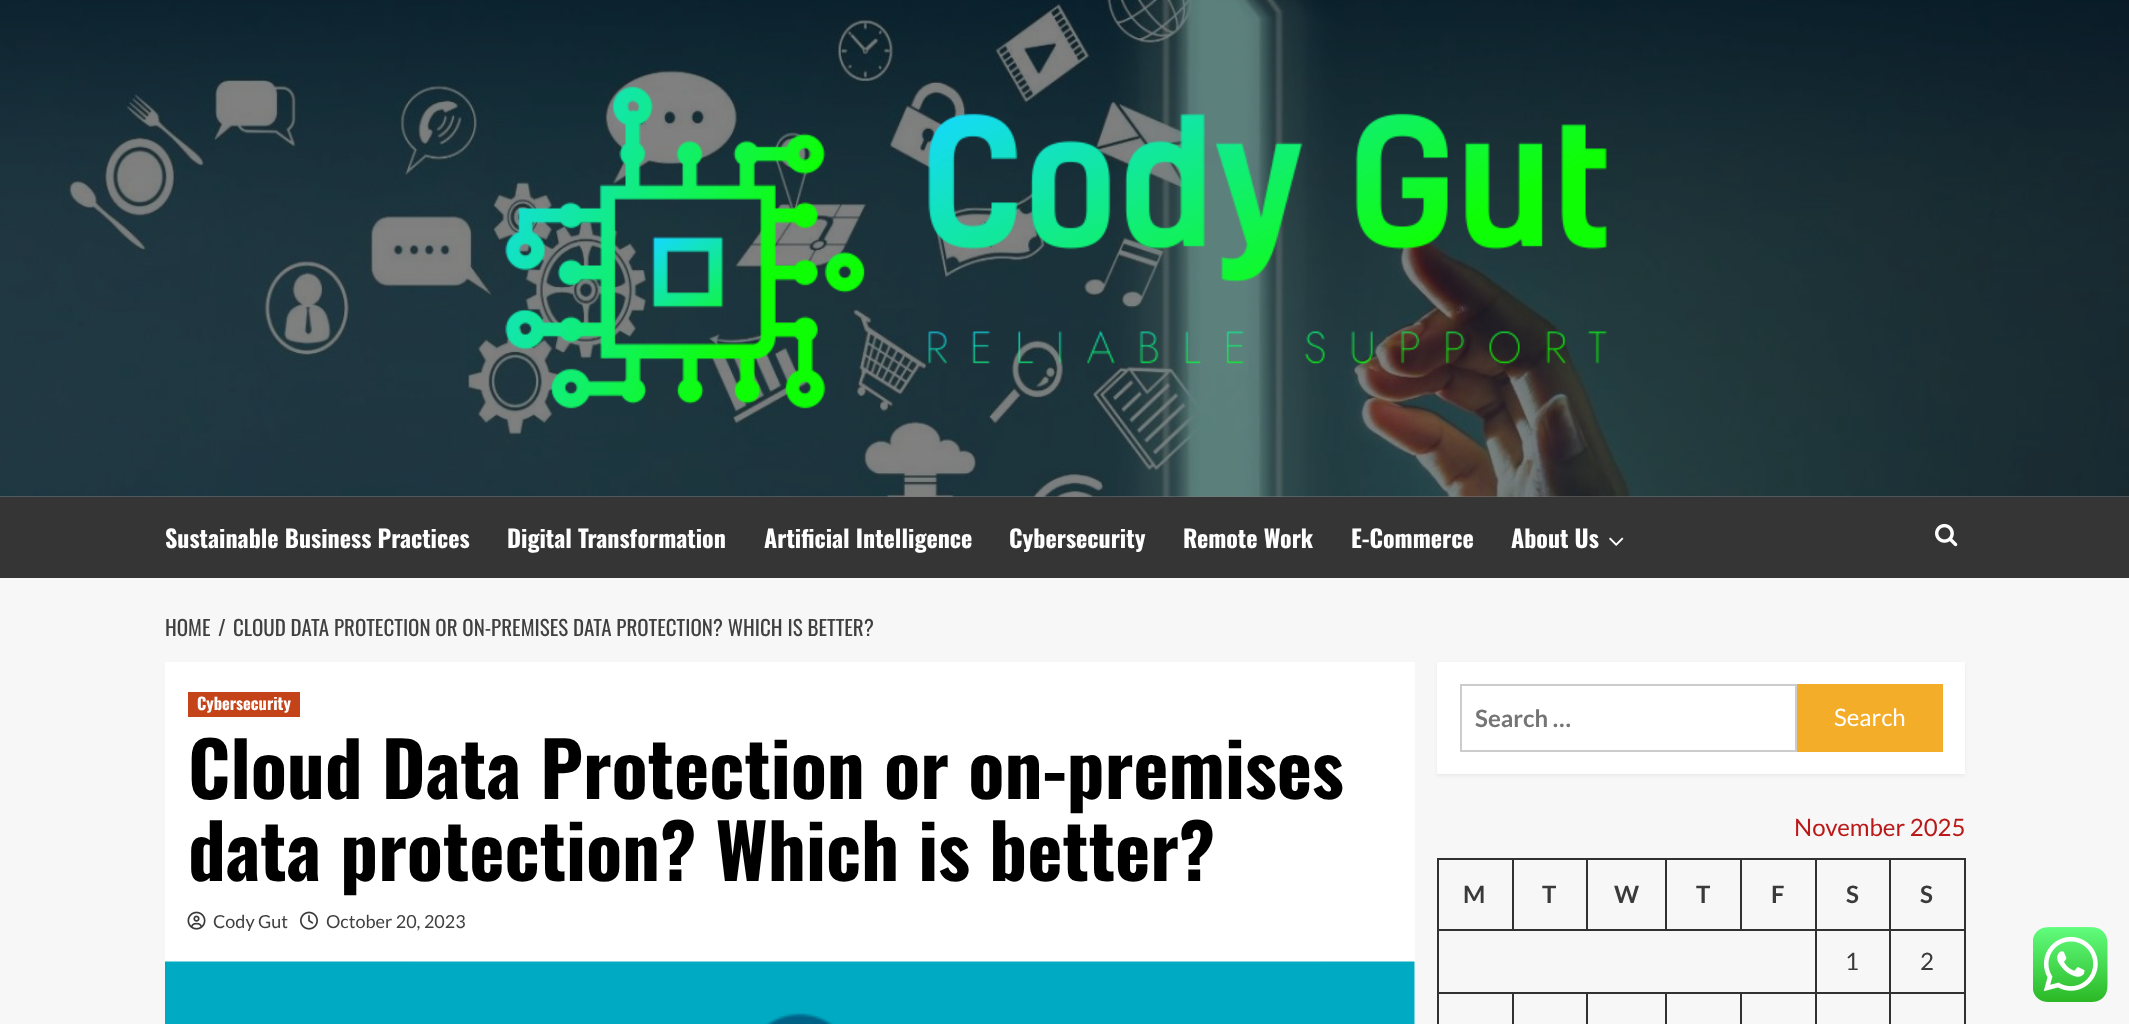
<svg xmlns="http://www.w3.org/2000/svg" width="2129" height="1024">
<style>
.a{font:bold 24px Oswald;fill:#fff}
.b{font:21px Oswald;fill:#404040}
.c{font:bold 16.5px Oswald;fill:#fff}
.d{font:bold 75px Oswald;fill:#000}
.e{font:18px Lato;fill:#404040}
.f{font:bold 24px Lato;fill:#757575}
.g{font:24px Lato;fill:#fff}
.h{font:24px Lato;fill:#bb1919}
.i{font:bold 24px Lato;fill:#3a3a3a}
.j{font:24px Lato;fill:#3a3a3a}
</style>
<rect width="100%" height="100%" fill="#f7f7f7"/>
<path fill="#7c7c7c" d="M0 496h2129v1H0z"/>
<image href="1.png" x="0" y="0" width="2129" height="497"/>
<image href="2.png" x="505" y="86" width="1102" height="323"/>
<path fill="#353535" d="M0 497h2129v81H0z"/>
<image href="3.png" x="1609" y="537" width="15" height="9"/>
<image href="4.png" x="1935" y="523" width="23" height="24"/>
<path fill="#fff" d="M165 662h1250v362H165z"/>
<path fill="#c44318" d="M188 692h112v25H188z"/>
<image href="5.png" x="187" y="911" width="19" height="19"/>
<image href="6.png" x="300" y="911" width="18" height="19"/>
<image href="7.png" x="165" y="961" width="1250" height="63"/>
<path fill="#0000000d" filter="blur(1.5px)" d="M1437 663h528v113H1437z"/>
<path fill="#fff" d="M1437 662h528v112H1437z"/>
<path fill="none" stroke="#ccc" stroke-width="2" d="M1461 685h335v66H1461z"/>
<path fill="#f3ad29" d="M1797 684h146v68H1797z"/>
<path fill="#313131" d="M1889 858h76v2H1889z"/>
<path fill="#313131" d="M1889 929h76v2H1889z"/>
<path fill="#313131" d="M1889 992h76v2H1889z"/>
<path fill="#313131" d="M1889 992h2v32H1889z"/>
<path fill="#313131" d="M1815 992h75v2H1815z"/>
<path fill="#313131" d="M1889 929h2v64H1889z"/>
<path fill="#313131" d="M1815 929h75v2H1815z"/>
<path fill="#313131" d="M1889 858h2v72H1889z"/>
<path fill="#313131" d="M1815 858h75v2H1815z"/>
<path fill="#313131" d="M1815 992h2v32H1815z"/>
<path fill="#313131" d="M1740 992h77v2H1740z"/>
<path fill="#313131" d="M1815 929h2v64H1815z"/>
<path fill="#313131" d="M1437 929h380v2H1437z"/>
<path fill="#313131" d="M1815 858h2v72H1815z"/>
<path fill="#313131" d="M1740 858h77v2H1740z"/>
<path fill="#313131" d="M1740 858h2v72H1740z"/>
<path fill="#313131" d="M1665 858h77v2H1665z"/>
<path fill="#313131" d="M1665 858h2v72H1665z"/>
<path fill="#313131" d="M1586 858h81v2H1586z"/>
<path fill="#313131" d="M1586 858h2v72H1586z"/>
<path fill="#313131" d="M1512 858h75v2H1512z"/>
<path fill="#313131" d="M1512 858h2v72H1512z"/>
<path fill="#313131" d="M1437 858h77v2H1437z"/>
<path fill="#313131" d="M1740 992h2v32H1740z"/>
<path fill="#313131" d="M1665 992h77v2H1665z"/>
<path fill="#313131" d="M1665 992h2v32H1665z"/>
<path fill="#313131" d="M1586 992h81v2H1586z"/>
<path fill="#313131" d="M1586 992h2v32H1586z"/>
<path fill="#313131" d="M1512 992h75v2H1512z"/>
<path fill="#313131" d="M1512 992h2v32H1512z"/>
<path fill="#313131" d="M1437 992h77v2H1437z"/>
<path fill="#313131" d="M1437 992h2v32H1437z"/>
<path fill="#313131" d="M1437 929h2v64H1437z"/>
<path fill="#313131" d="M1437 858h2v72H1437z"/>
<path fill="#313131" d="M1964 992h2v32H1964z"/>
<path fill="#313131" d="M1964 929h2v64H1964z"/>
<path fill="#313131" d="M1964 858h2v72H1964z"/>
<image href="8.png" x="2033" y="927" width="75" height="75"/>
<text class="a" x="165" y="548">Sustainable Business Practices</text>
<text class="a" x="507" y="548">Digital Transformation</text>
<text class="a" x="764" y="548">Artificial Intelligence</text>
<text class="a" x="1009" y="548">Cybersecurity</text>
<text class="a" x="1183" y="548">Remote Work</text>
<text class="a" x="1351" y="548">E-Commerce</text>
<text class="a" x="1511" y="548">About Us</text>
<text class="b" x="165" y="636">HOME</text>
<text class="b" x="218" y="636">/</text>
<text class="b" x="233" y="636">CLOUD DATA PROTECTION OR ON-PREMISES DATA PROTECTION? WHICH IS BETTER?</text>
<text class="c" x="197" y="710">Cybersecurity</text>
<text class="d" x="188" y="799">Cloud Data Protection or on-premises</text>
<text class="d" x="188" y="881">data protection? Which is better?</text>
<text class="e" x="213" y="928">Cody Gut</text>
<text class="e" x="326" y="928">October 20, 2023</text>
<text class="f" x="1475" y="727">Search …</text>
<text class="g" x="1834" y="726">Search</text>
<text class="h" x="1794" y="836">November 2025</text>
<text class="i" x="1463" y="903">M</text>
<text class="i" x="1542" y="903">T</text>
<text class="i" x="1614" y="903">W</text>
<text class="i" x="1696" y="903">T</text>
<text class="i" x="1771" y="903">F</text>
<text class="i" x="1846" y="903">S</text>
<text class="i" x="1920" y="903">S</text>
<text class="j" x="1845" y="970">1</text>
<text class="j" x="1920" y="970">2</text>
</svg>
